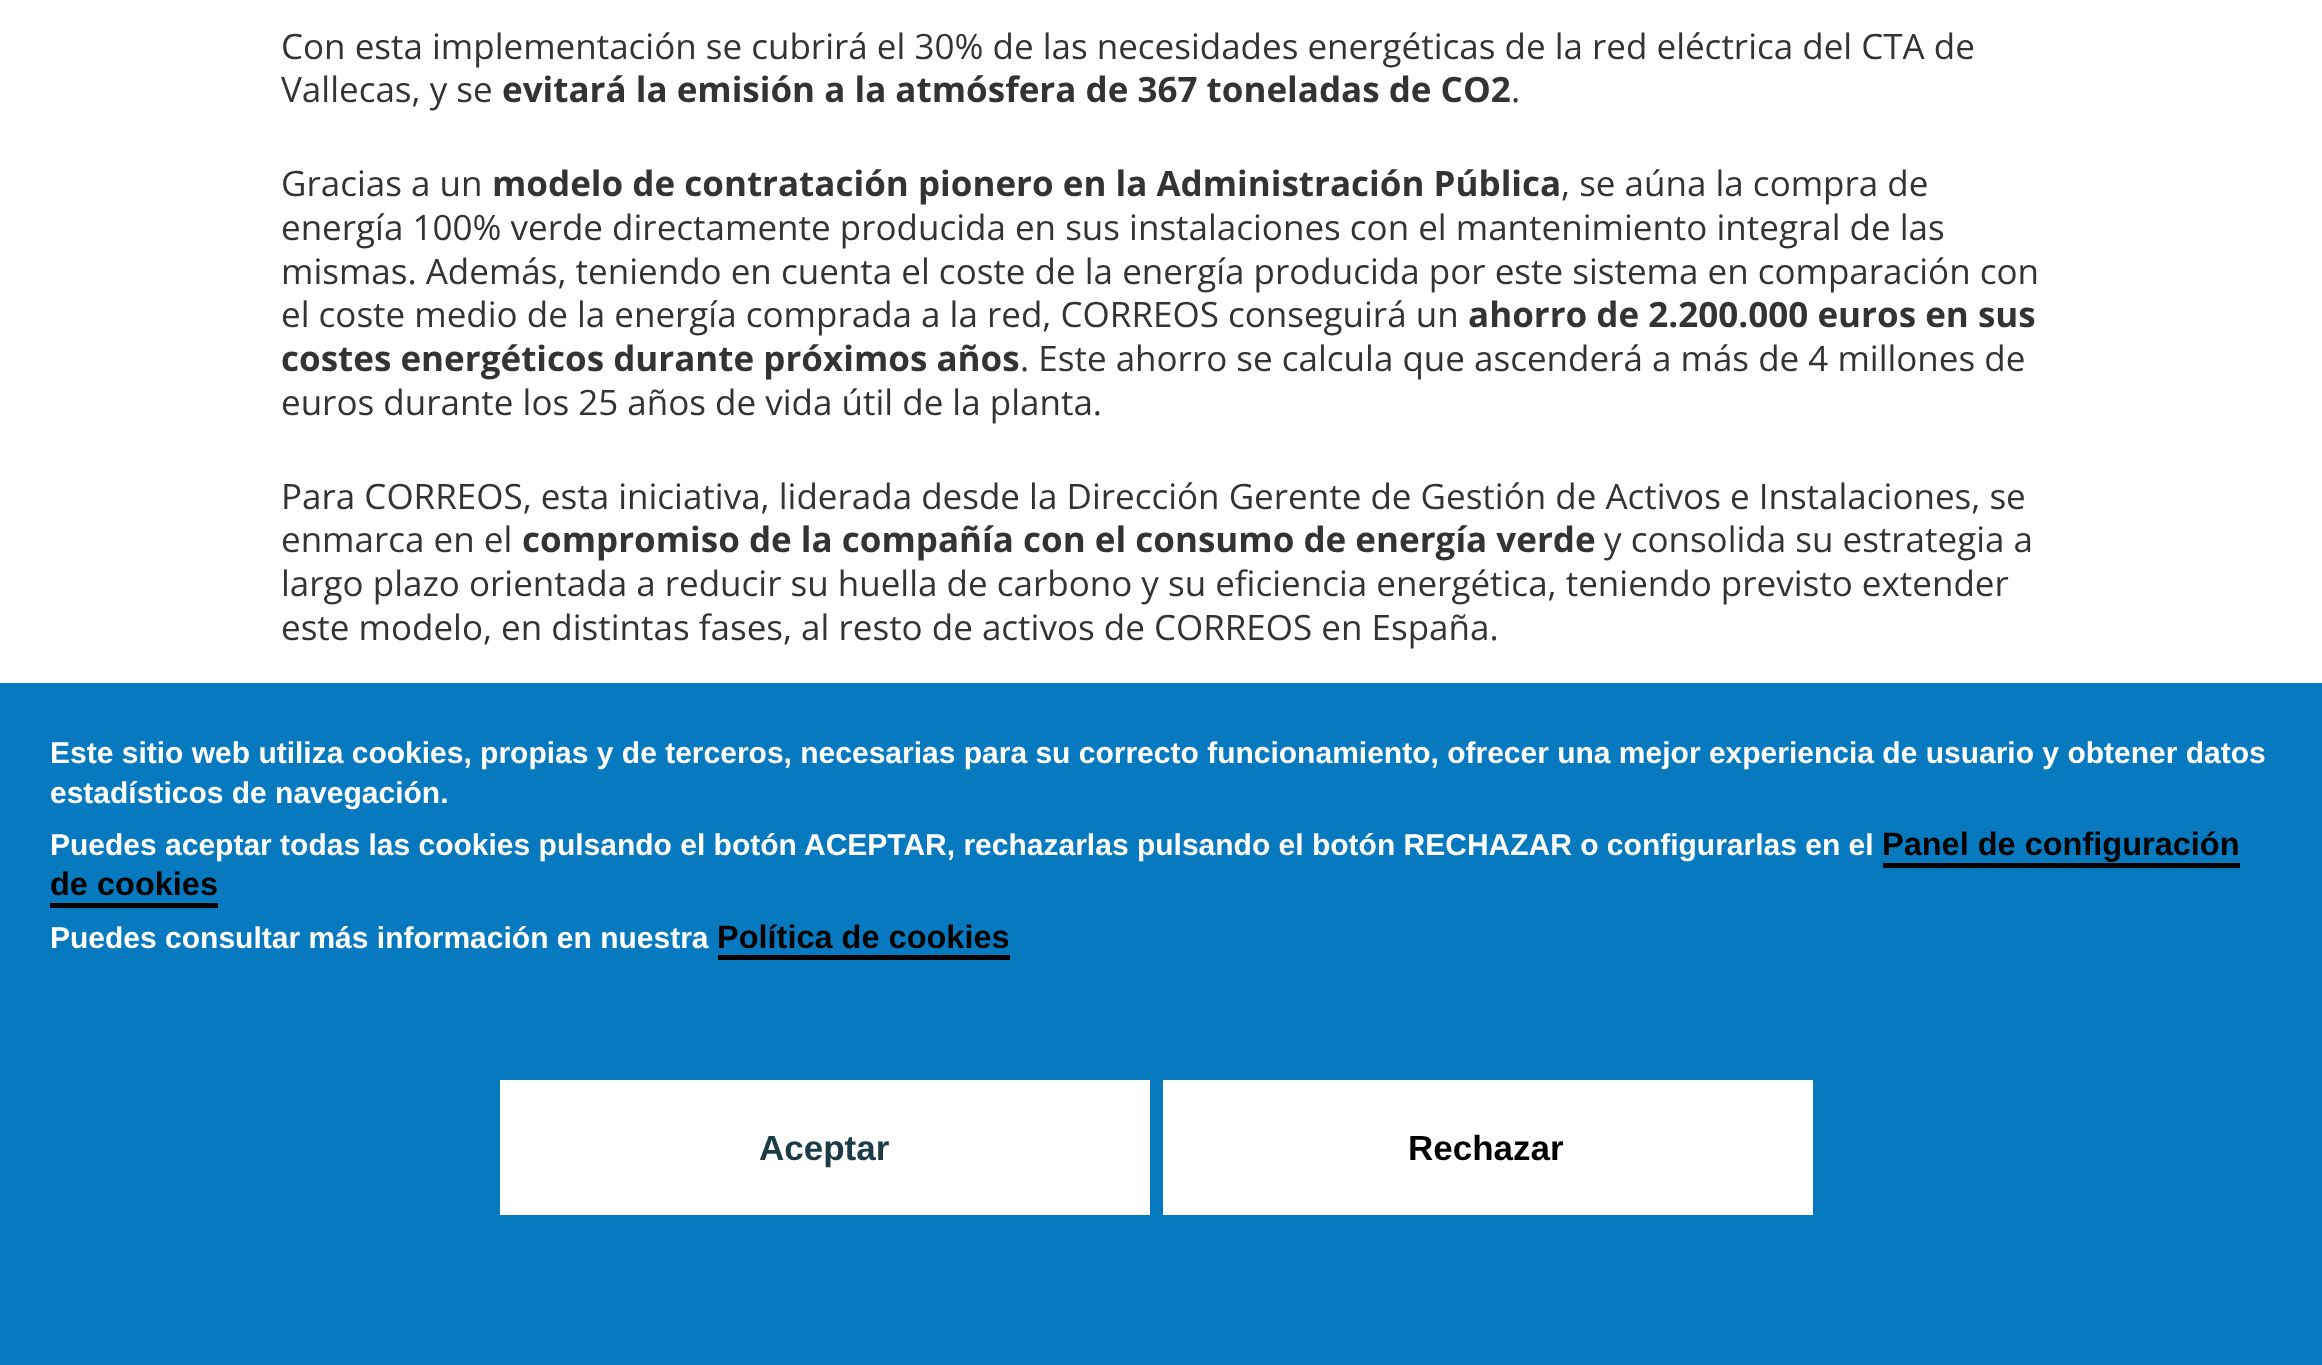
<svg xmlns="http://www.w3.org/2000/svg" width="2322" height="1365">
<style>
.a{font:35px Open Sans;fill:#333}
.b{font:bold 35px Open Sans;fill:#333}
.c{font:bold 30px Liberation Sans;fill:#fff}
.d{font:bold 32.5px Liberation Sans;fill:#000}
.e{font:bold 35px Liberation Sans;fill:#1a3b47}
.f{font:bold 35px Liberation Sans;fill:#000}
</style>
<rect width="100%" height="100%" fill="#fff"/>
<path fill="#0779bf" d="M0 683h2322v682H0z"/>
<path fill="#000" d="M1883 863h357v5H1883z"/>
<path fill="#000" d="M50 903h168v5H50z"/>
<path fill="#000" d="M718 955h292v5H718z"/>
<path fill="#fff" d="M500 1080h650v135H500z"/>
<path fill="#fff" d="M1163 1080h650v135H1163z"/>
<text class="a" x="281" y="59">Con esta implementación se cubrirá el 30% de las necesidades energéticas de la red eléctrica del CTA de</text>
<text class="a" x="281" y="102">Vallecas, y se</text>
<text class="b" x="502" y="102">evitará la emisión a la atmósfera de 367 toneladas de CO2</text>
<text class="a" x="1511" y="102">.</text>
<text class="a" x="281" y="196">Gracias a un</text>
<text class="b" x="492" y="196">modelo de contratación pionero en la Administración Pública</text>
<text class="a" x="1561" y="196">, se aúna la compra de</text>
<text class="a" x="281" y="240">energía 100% verde directamente producida en sus instalaciones con el mantenimiento integral de las</text>
<text class="a" x="281" y="284">mismas. Además, teniendo en cuenta el coste de la energía producida por este sistema en comparación con</text>
<text class="a" x="281" y="327">el coste medio de la energía comprada a la red, CORREOS conseguirá un</text>
<text class="b" x="1468" y="327">ahorro de 2.200.000 euros en sus</text>
<text class="b" x="281" y="371">costes energéticos durante próximos años</text>
<text class="a" x="1020" y="371">. Este ahorro se calcula que ascenderá a más de 4 millones de</text>
<text class="a" x="281" y="415">euros durante los 25 años de vida útil de la planta.</text>
<text class="a" x="281" y="509">Para CORREOS, esta iniciativa, liderada desde la Dirección Gerente de Gestión de Activos e Instalaciones, se</text>
<text class="a" x="281" y="552">enmarca en el</text>
<text class="b" x="522" y="552">compromiso de la compañía con el consumo de energía verde</text>
<text class="a" x="1604" y="552">y consolida su estrategia a</text>
<text class="a" x="281" y="596">largo plazo orientada a reducir su huella de carbono y su eficiencia energética, teniendo previsto extender</text>
<text class="a" x="281" y="640">este modelo, en distintas fases, al resto de activos de CORREOS en España.</text>
<text class="c" x="50" y="763">Este sitio web utiliza cookies, propias y de terceros, necesarias para su correcto funcionamiento, ofrecer una mejor experiencia de usuario y obtener datos</text>
<text class="c" x="50" y="803">estadísticos de navegación.</text>
<text class="c" x="50" y="855">Puedes aceptar todas las cookies pulsando el botón</text>
<text class="c" x="804" y="855">ACEPTAR, rechazarlas pulsando el botón RECHAZAR o configurarlas en el</text>
<text class="d" x="1882" y="855">Panel de configuración</text>
<text class="d" x="50" y="895">de cookies</text>
<text class="c" x="50" y="948">Puedes consultar más información en nuestra</text>
<text class="d" x="717" y="948">Política de cookies</text>
<text class="e" x="759" y="1160">Aceptar</text>
<text class="f" x="1408" y="1160">Rechazar</text>
</svg>
